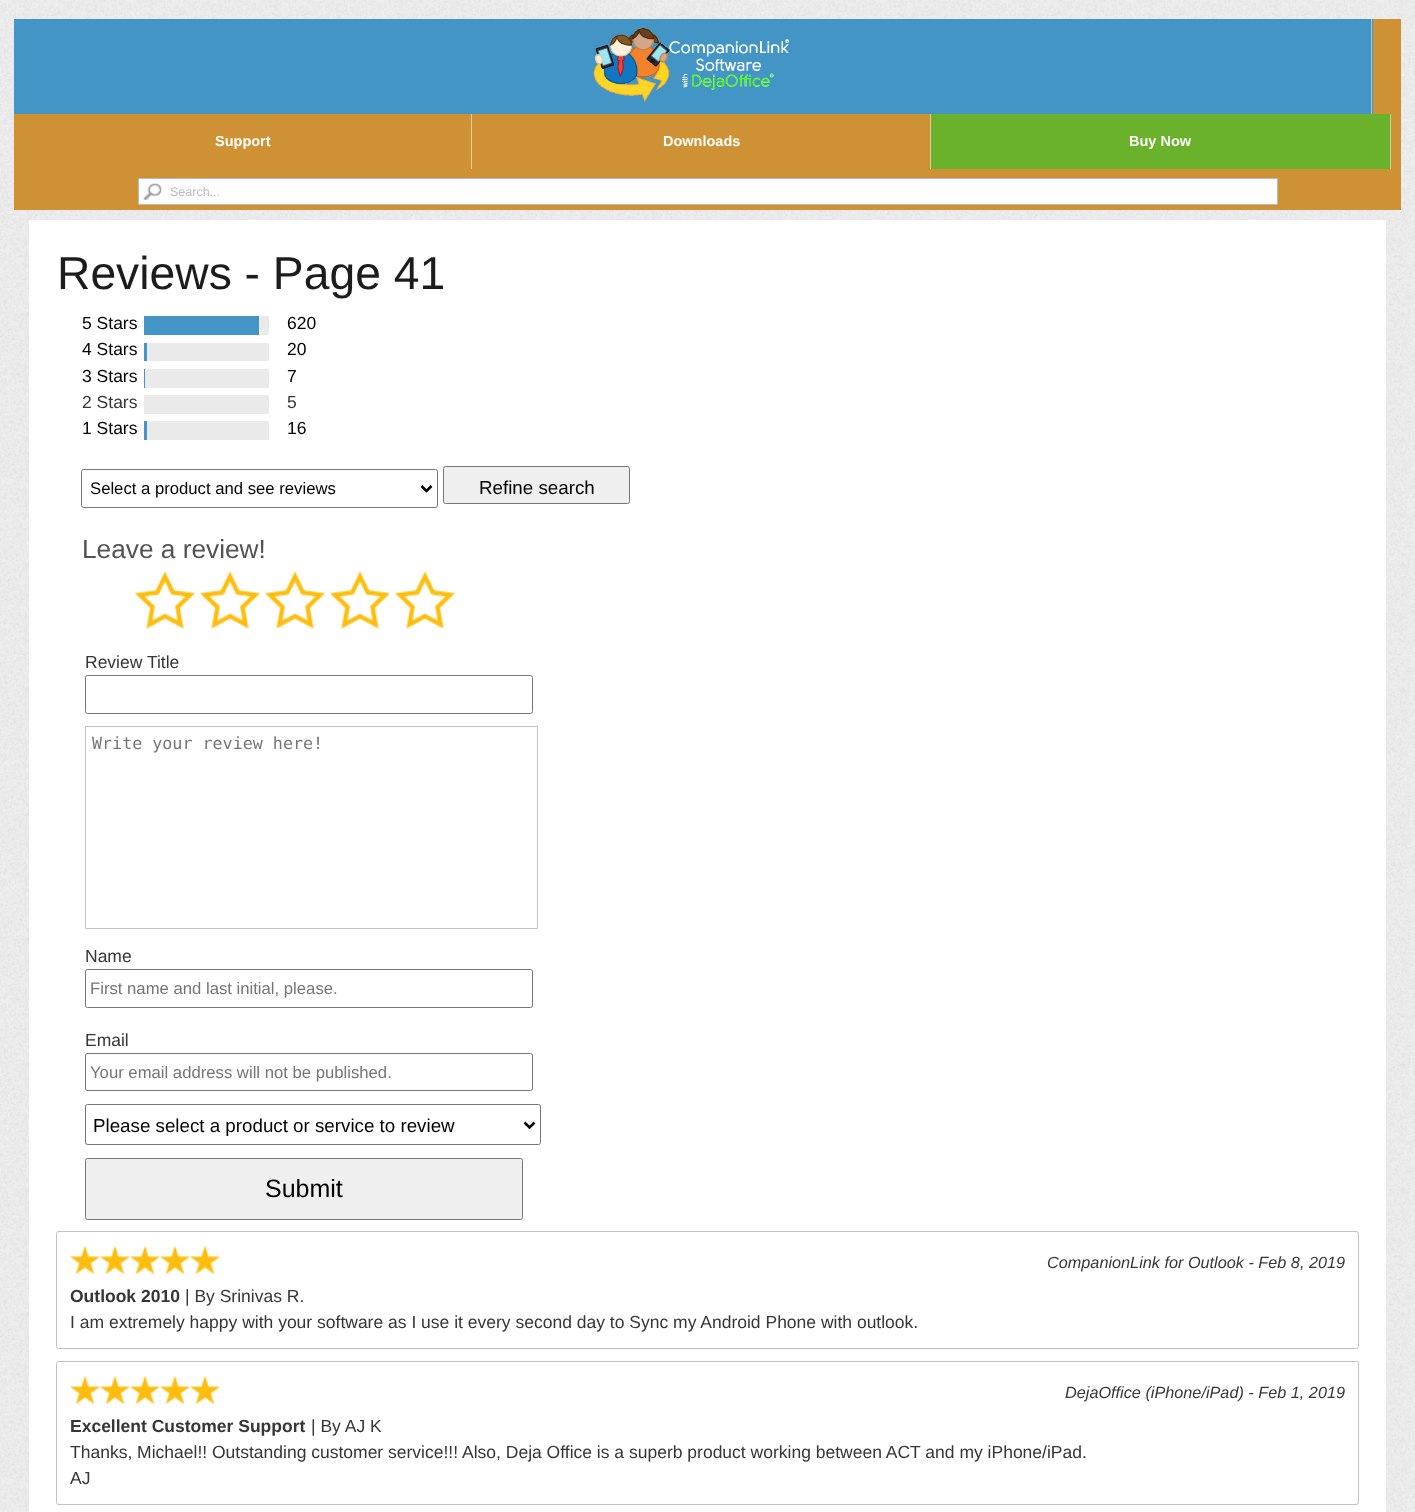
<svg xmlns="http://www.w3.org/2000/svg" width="1415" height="1512">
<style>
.a{font:bold 14.5px Liberation Sans;fill:#fff}
.b{font:12.5px Liberation Sans;fill:#bbb}
.c{font:46.25px Liberation Sans;fill:#1c1c1c}
.d{font:17.5px Liberation Sans;fill:#000}
.e{font:17.5px Liberation Sans;fill:#363636}
.f{font:16.7px Liberation Sans;fill:#000}
.g{font:18.75px Liberation Sans;fill:#000}
.h{font:26.25px Liberation Sans;fill:#525252}
.i{font:16.7px DejaVu Sans Mono;fill:#757575}
.j{font:16.7px Liberation Sans;fill:#757575}
.k{font:25px Liberation Sans;fill:#000}
.l{font:italic 16.25px Liberation Sans;fill:#363636}
.m{font:bold 17.5px Liberation Sans;fill:#363636}
</style>
<rect width="100%" height="100%" fill="#fff"/>
<image href="1.png" x="0" y="0" width="1415" height="1512"/>
<path fill="#ce9134" d="M14 19h1387v191H14z"/>
<path fill="#4295c5" d="M14 19h1359v95H14z"/>
<path fill="#a0cae2" d="M1371 19h1v95H1371z"/>
<image href="2.png" x="593" y="28" width="197" height="74"/>
<path fill="#e6c899" d="M471 114h1v55H471z"/>
<path fill="#e6c899" d="M930 114h1v55H930z"/>
<path fill="#6ab22b" d="M931 114h459v55H931z"/>
<path fill="#b4d895" d="M1390 114h1v55H1390z"/>
<path fill="#fff" d="M139 179h1138v25H139z"/>
<image href="3.png" x="143" y="183" width="19" height="17"/>
<path fill="none" stroke="#bbb" d="M138.5 178.5h1139v26H138.5z"/>
<path fill="#fff" d="M29 220h1357v1292H29z"/>
<path fill="#eaeaea" d="M259 316h10v19H259z"/>
<path fill="#4295c5" d="M144 316h115v19H144z"/>
<path fill="#eaeaea" d="M147 343h122v18H147z"/>
<path fill="#4295c5" d="M144 343h3v18H144z"/>
<path fill="#eaeaea" d="M145 369h124v19H145z"/>
<path fill="#4295c5" d="M144 369h1v19H144z"/>
<path fill="#eaeaea" d="M144 395h125v19H144z"/>
<path fill="#eaeaea" d="M147 421h122v19H147z"/>
<path fill="#4295c5" d="M144 421h3v19H144z"/>
<rect fill="none" stroke="#767676" x="81.5" y="469.5" width="356" height="38" rx="2"/>
<path fill="none" stroke="#000" stroke-width="2.5" d="M421.5 486l5 5l5-5"/>
<rect fill="#efefef" stroke="#767676" x="443.5" y="466.5" width="186" height="37" rx="2"/>
<image href="4.png" x="135" y="571" width="60" height="58"/>
<image href="4.png" x="200" y="571" width="60" height="58"/>
<image href="5.png" x="265" y="571" width="60" height="58"/>
<image href="4.png" x="330" y="571" width="60" height="58"/>
<image href="4.png" x="395" y="571" width="60" height="58"/>
<rect fill="none" stroke="#767676" x="85.5" y="675.5" width="447" height="38" rx="2"/>
<path fill="none" stroke="#c1c1c1" d="M85.5 726.5h452v202H85.5z"/>
<rect fill="none" stroke="#767676" x="85.5" y="969.5" width="447" height="38" rx="2"/>
<rect fill="none" stroke="#767676" x="85.5" y="1053.5" width="447" height="37" rx="2"/>
<rect fill="none" stroke="#767676" x="85.5" y="1104.5" width="455" height="40" rx="2"/>
<path fill="none" stroke="#000" stroke-width="2.5" d="M524.5 1122.5l5 5l5-5"/>
<rect fill="#efefef" stroke="#767676" x="85.5" y="1158.5" width="437" height="61" rx="2"/>
<rect fill="none" stroke="#c1c1c1" x="56.5" y="1231.5" width="1302" height="117" rx="2"/>
<image href="6.png" x="70" y="1245" width="30" height="30"/>
<image href="6.png" x="100" y="1245" width="30" height="30"/>
<image href="6.png" x="130" y="1245" width="30" height="30"/>
<image href="6.png" x="160" y="1245" width="30" height="30"/>
<image href="6.png" x="190" y="1245" width="30" height="30"/>
<rect fill="none" stroke="#c1c1c1" x="56.5" y="1361.5" width="1302" height="143" rx="2"/>
<image href="6.png" x="70" y="1375" width="30" height="30"/>
<image href="6.png" x="100" y="1375" width="30" height="30"/>
<image href="6.png" x="130" y="1375" width="30" height="30"/>
<image href="6.png" x="160" y="1375" width="30" height="30"/>
<image href="6.png" x="190" y="1375" width="30" height="30"/>
<text class="a" x="215" y="146">Support</text>
<text class="a" x="663" y="146">Downloads</text>
<text class="a" x="1129" y="146">Buy Now</text>
<text class="b" x="170" y="196">Search...</text>
<text class="c" x="57" y="289">Reviews - Page 41</text>
<text class="d" x="82" y="329">5 Stars</text>
<text class="d" x="287" y="329">620</text>
<text class="d" x="82" y="355">4 Stars</text>
<text class="d" x="287" y="355">20</text>
<text class="d" x="82" y="382">3 Stars</text>
<text class="d" x="287" y="382">7</text>
<text class="e" x="82" y="408">2 Stars</text>
<text class="e" x="287" y="408">5</text>
<text class="d" x="82" y="434">1 Stars</text>
<text class="d" x="287" y="434">16</text>
<text class="f" x="90" y="494">Select a product and see reviews</text>
<text class="g" x="479" y="494">Refine search</text>
<text class="h" x="82" y="558">Leave a review!</text>
<text class="e" x="85" y="668">Review Title</text>
<text class="i" x="92" y="749">Write your review here!</text>
<text class="e" x="85" y="962">Name</text>
<text class="j" x="90" y="994">First name and last initial, please.</text>
<text class="e" x="85" y="1046">Email</text>
<text class="j" x="90" y="1078">Your email address will not be published.</text>
<text class="g" x="93" y="1132">Please select a product or service to review</text>
<text class="k" x="265" y="1197">Submit</text>
<text class="l" x="1047" y="1268">CompanionLink for Outlook - Feb 8, 2019</text>
<text class="m" x="70" y="1302">Outlook 2010</text>
<text class="e" x="185" y="1302">| By Srinivas R.</text>
<text class="e" x="70" y="1328">I am extremely happy with your software as I use it every second day to Sync my Android Phone with outlook.</text>
<text class="l" x="1065" y="1398">DejaOffice (iPhone/iPad) - Feb 1, 2019</text>
<text class="m" x="70" y="1432">Excellent Customer Support</text>
<text class="e" x="311" y="1432">| By AJ K</text>
<text class="e" x="70" y="1458">Thanks, Michael!! Outstanding customer service!!!</text>
<text class="e" x="462" y="1458">Also, Deja Office is a superb product working between ACT and my iPhone/iPad.</text>
<text class="e" x="70" y="1484">AJ</text>
</svg>
